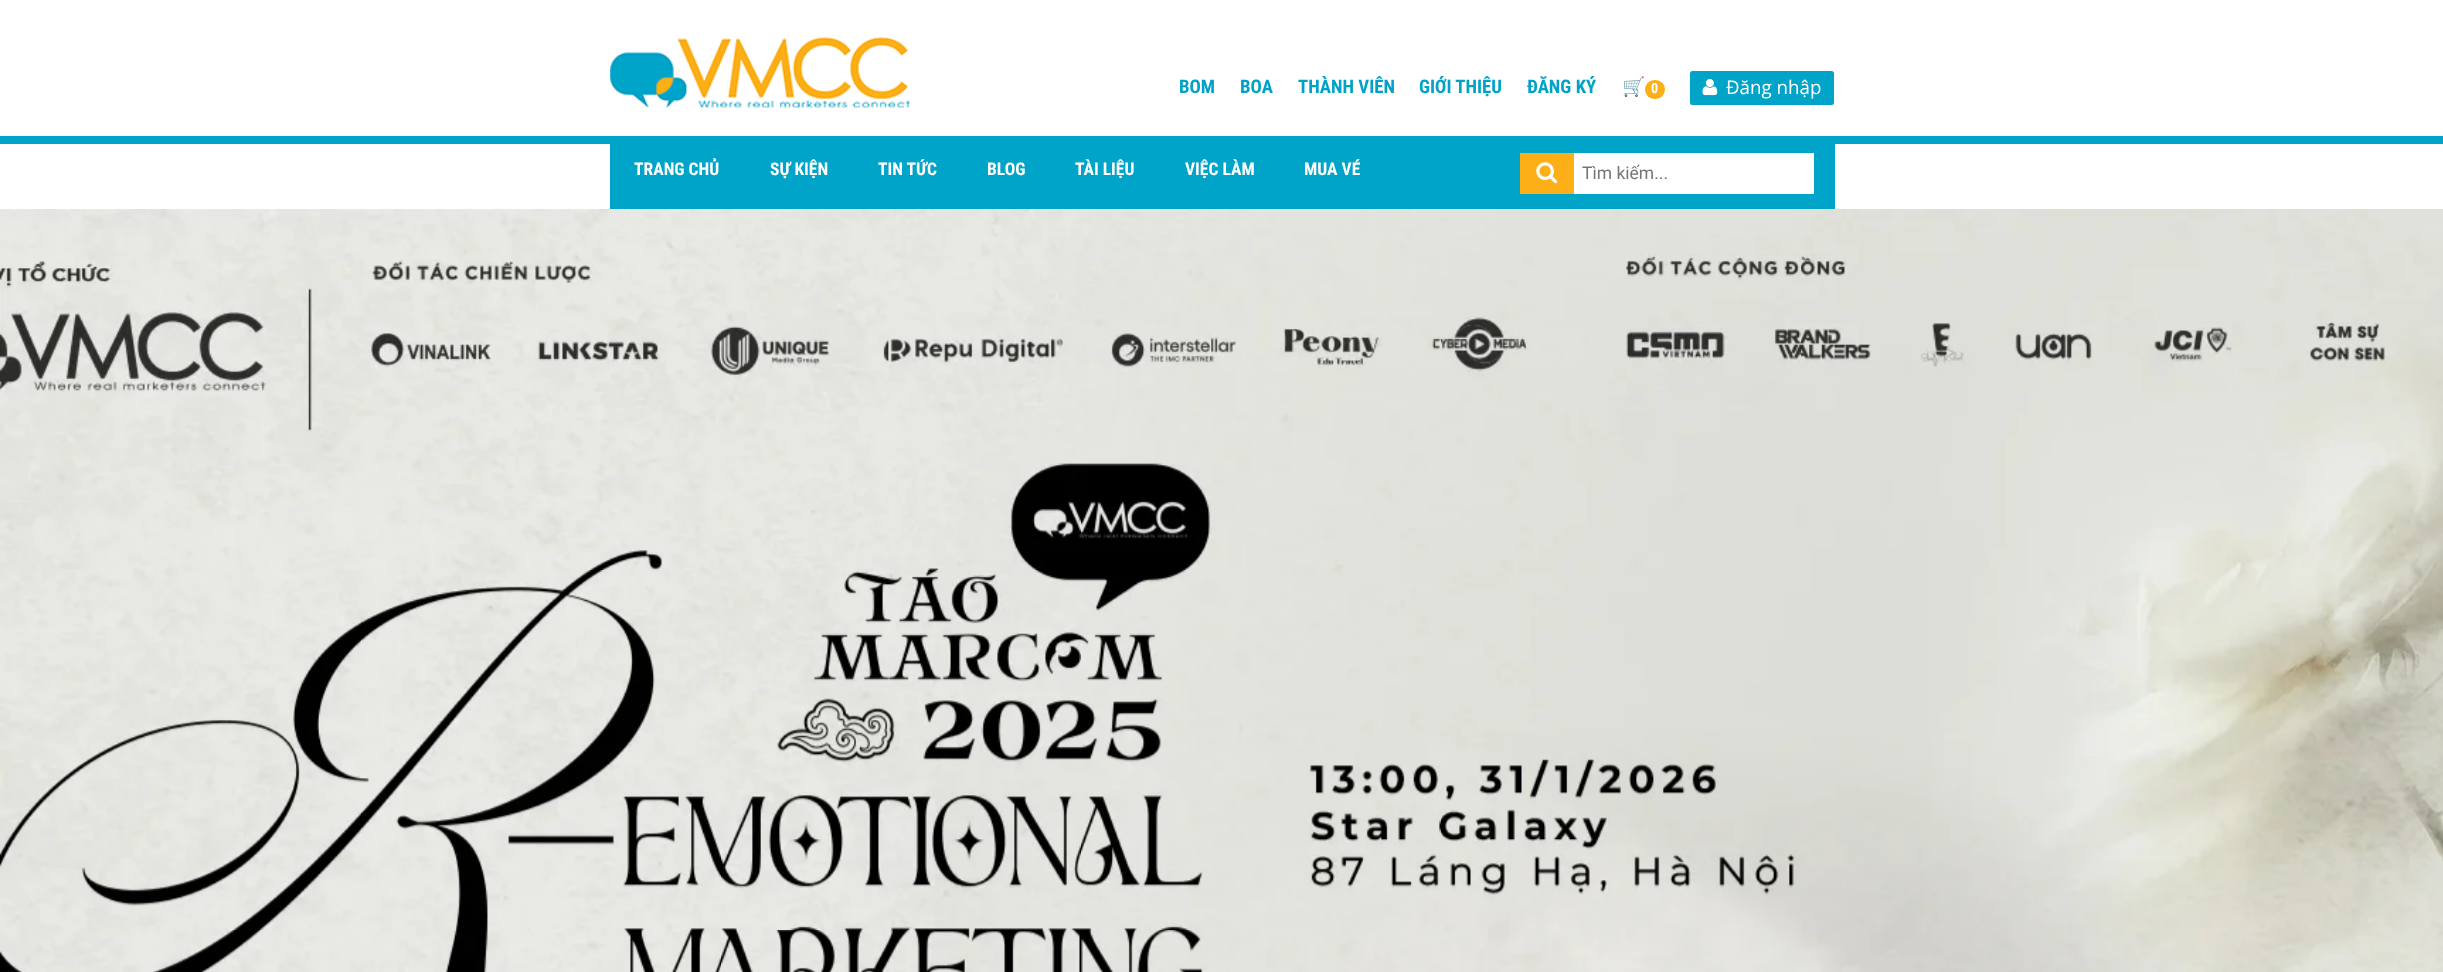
<svg xmlns="http://www.w3.org/2000/svg" width="2443" height="972">
<style>
.a{font:bold 18.75px Roboto Condensed;fill:#00a3c7}
.b{font:bold 18.75px Noto Color Emoji;fill:#00a3c7}
.c{font:bold 14px Roboto Condensed;fill:#fff}
.d{font:18.75px Open Sans;fill:#fff}
.e{font:bold 17.5px Roboto Condensed;fill:#fff}
.f{font:17.5px Roboto;fill:#757575}
</style>
<rect width="100%" height="100%" fill="#fff"/>
<path fill="#00a4c8" d="M0 136h2443v8H0z"/>
<image href="1.png" x="610" y="37" width="300" height="71"/>
<rect fill="#fcaf17" x="1645" y="80" width="20" height="19" rx="9.5"/>
<rect fill="#00a4c8" x="1690" y="71" width="144" height="34" rx="2.5"/>
<image href="2.png" x="1702" y="79" width="16" height="17"/>
<path fill="#00a4c8" d="M610 144h1225v65H610z"/>
<path fill="#fcaf17" d="M1520 153h54v41H1520z"/>
<image href="3.png" x="1536" y="162" width="22" height="22"/>
<path fill="#fff" d="M1574 153h240v41H1574z"/>
<image href="4.png" x="0" y="209" width="2443" height="763"/>
<text class="a" x="1179" y="93">BOM</text>
<text class="a" x="1240" y="93">BOA</text>
<text class="a" x="1298" y="93">THÀNH VIÊN</text>
<text class="a" x="1419" y="93">GIỚI THIỆU</text>
<text class="a" x="1527" y="93">ĐĂNG KÝ</text>
<text class="b" x="1622" y="93">🛒</text>
<text class="c" x="1651" y="93">0</text>
<text class="d" x="1726" y="94">Đăng nhập</text>
<text class="e" x="634" y="175">TRANG CHỦ</text>
<text class="e" x="770" y="175">SỰ KIỆN</text>
<text class="e" x="878" y="175">TIN TỨC</text>
<text class="e" x="987" y="175">BLOG</text>
<text class="e" x="1075" y="175">TÀI LIỆU</text>
<text class="e" x="1185" y="175">VIỆC LÀM</text>
<text class="e" x="1304" y="175">MUA VÉ</text>
<text class="f" x="1582" y="179">Tìm kiếm...</text>
</svg>
